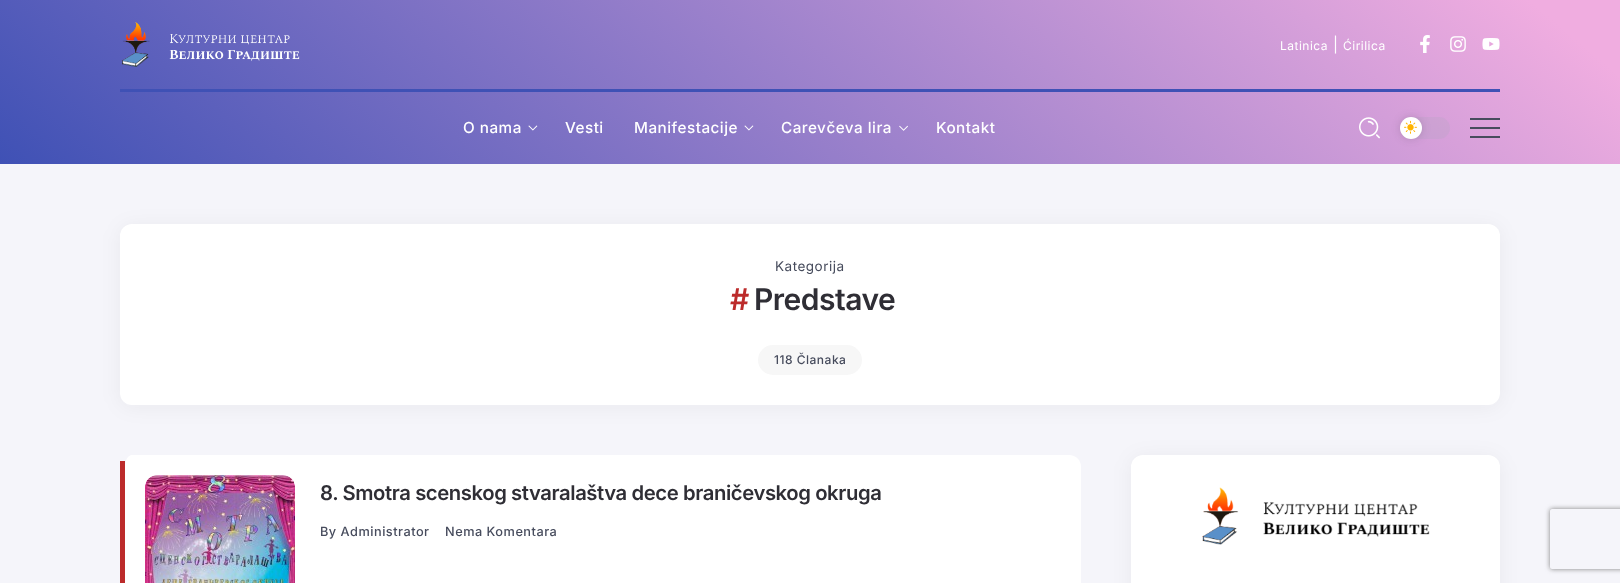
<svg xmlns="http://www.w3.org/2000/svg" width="1620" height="583">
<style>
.a{font:12px Inter;letter-spacing:0.5px;fill:#fff}
.b{font:15px Inter;letter-spacing:0.5px;fill:#fff}
.c{font:500 15.25px Inter;letter-spacing:0.5px;fill:#fff}
.d{font:13.5px Inter;letter-spacing:0.5px;fill:#474c5d}
.e{font:600 30px Inter;letter-spacing:-0.5px;fill:#bc2b2b}
.f{font:600 30px Inter;letter-spacing:-0.5px;fill:#2f2e35}
.g{font:500 12px Inter;letter-spacing:0.5px;fill:#474c5d}
.h{font:600 20.25px Inter;letter-spacing:-0.4px;fill:#2f2e35}
.i{font:500 12.75px Inter;letter-spacing:0.5px;fill:#474c5d}
</style>
<defs>
<linearGradient id="g1" gradientUnits="userSpaceOnUse" x1="435" y1="529" x2="1185" y2="-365"><stop offset="0" stop-color="#3f51b5"/><stop offset="0.95" stop-color="#f0ade0"/></linearGradient>
<clipPath id="clip1"><path d="M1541 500h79v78h-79zm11 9h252c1 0 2 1 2 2v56c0 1-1 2-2 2h-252c-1 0-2-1-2-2v-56c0-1 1-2 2-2z" clip-rule="evenodd"/></clipPath>
</defs>
<rect width="100%" height="100%" fill="#f5f5fa"/>
<path fill="url(#g1)" d="M0 0h1620v164H0z"/>
<image href="1.png" x="121" y="22" width="179" height="45"/>
<image href="2.png" x="1420" y="35" width="10" height="18"/>
<image href="3.png" x="1450" y="36" width="16" height="16"/>
<image href="4.png" x="1482" y="38" width="18" height="12"/>
<path fill="#3f51b5" d="M120 89h1380v3H120z"/>
<image href="5.png" x="528" y="125" width="10" height="6"/>
<image href="6.png" x="744" y="125" width="10" height="6"/>
<image href="7.png" x="899" y="125" width="9" height="6"/>
<image href="8.png" x="1359" y="117" width="21" height="22"/>
<rect fill="#9fa8b52e" x="1400" y="117" width="50" height="22" rx="11"/>
<rect fill="#2f313930" filter="blur(4px)" x="1400" y="117" width="22" height="22" rx="11"/>
<circle fill="#fff" cx="1411" cy="128" r="11"/>
<image href="9.png" x="1404" y="120" width="13" height="14"/>
<path fill="#474c5d" d="M1470 118h30v2H1470z"/>
<path fill="#474c5d" d="M1470 127h30v2H1470z"/>
<path fill="#474c5d" d="M1470 136h30v2H1470z"/>
<rect fill="#0e0e130d" filter="blur(10px)" x="120" y="226" width="1380" height="181" rx="12"/>
<rect fill="#fff" x="120" y="224" width="1380" height="181" rx="12"/>
<rect fill="#f7f7f7" x="758" y="345" width="104" height="30" rx="15"/>
<path fill="#fff" d="M132 455h937c7 0 12 5 12 12v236c0 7-5 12-12 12h-937c-4 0-7-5-7-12v-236c0-7 3-12 7-12z"/>
<path fill="#bc2b2b" d="M120 461h5v122H120z"/>
<image href="10.png" x="145" y="475" width="150" height="108"/>
<rect fill="#0e0e130d" filter="blur(10px)" x="1131" y="457" width="369" height="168" rx="12"/>
<rect fill="#fff" x="1131" y="455" width="369" height="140" rx="12"/>
<image href="11.png" x="1202" y="487" width="228" height="58"/>
<g clip-path="url(#clip1)">
<rect fill="#808080" filter="blur(2.5px)" x="1550" y="509" width="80" height="60" rx="2"/>
</g>
<text class="a" x="1280" y="50">Latinica</text>
<text class="b" x="1333" y="50">|</text>
<text class="a" x="1343" y="50">Ćirilica</text>
<text class="c" x="463" y="133">O nama</text>
<text class="c" x="565" y="133">Vesti</text>
<text class="c" x="634" y="133">Manifestacije</text>
<text class="c" x="781" y="133">Carevčeva lira</text>
<text class="c" x="936" y="133">Kontakt</text>
<text class="d" x="775" y="271">Kategorija</text>
<text class="e" x="730" y="310">#</text>
<text class="f" x="754" y="310">Predstave</text>
<text class="g" x="774" y="364">118 Članaka</text>
<text class="h" x="320" y="500">8. Smotra scenskog stvaralaštva dece braničevskog okruga</text>
<text class="i" x="320" y="536">By Administrator</text>
<text class="i" x="445" y="536">Nema Komentara</text>
</svg>
